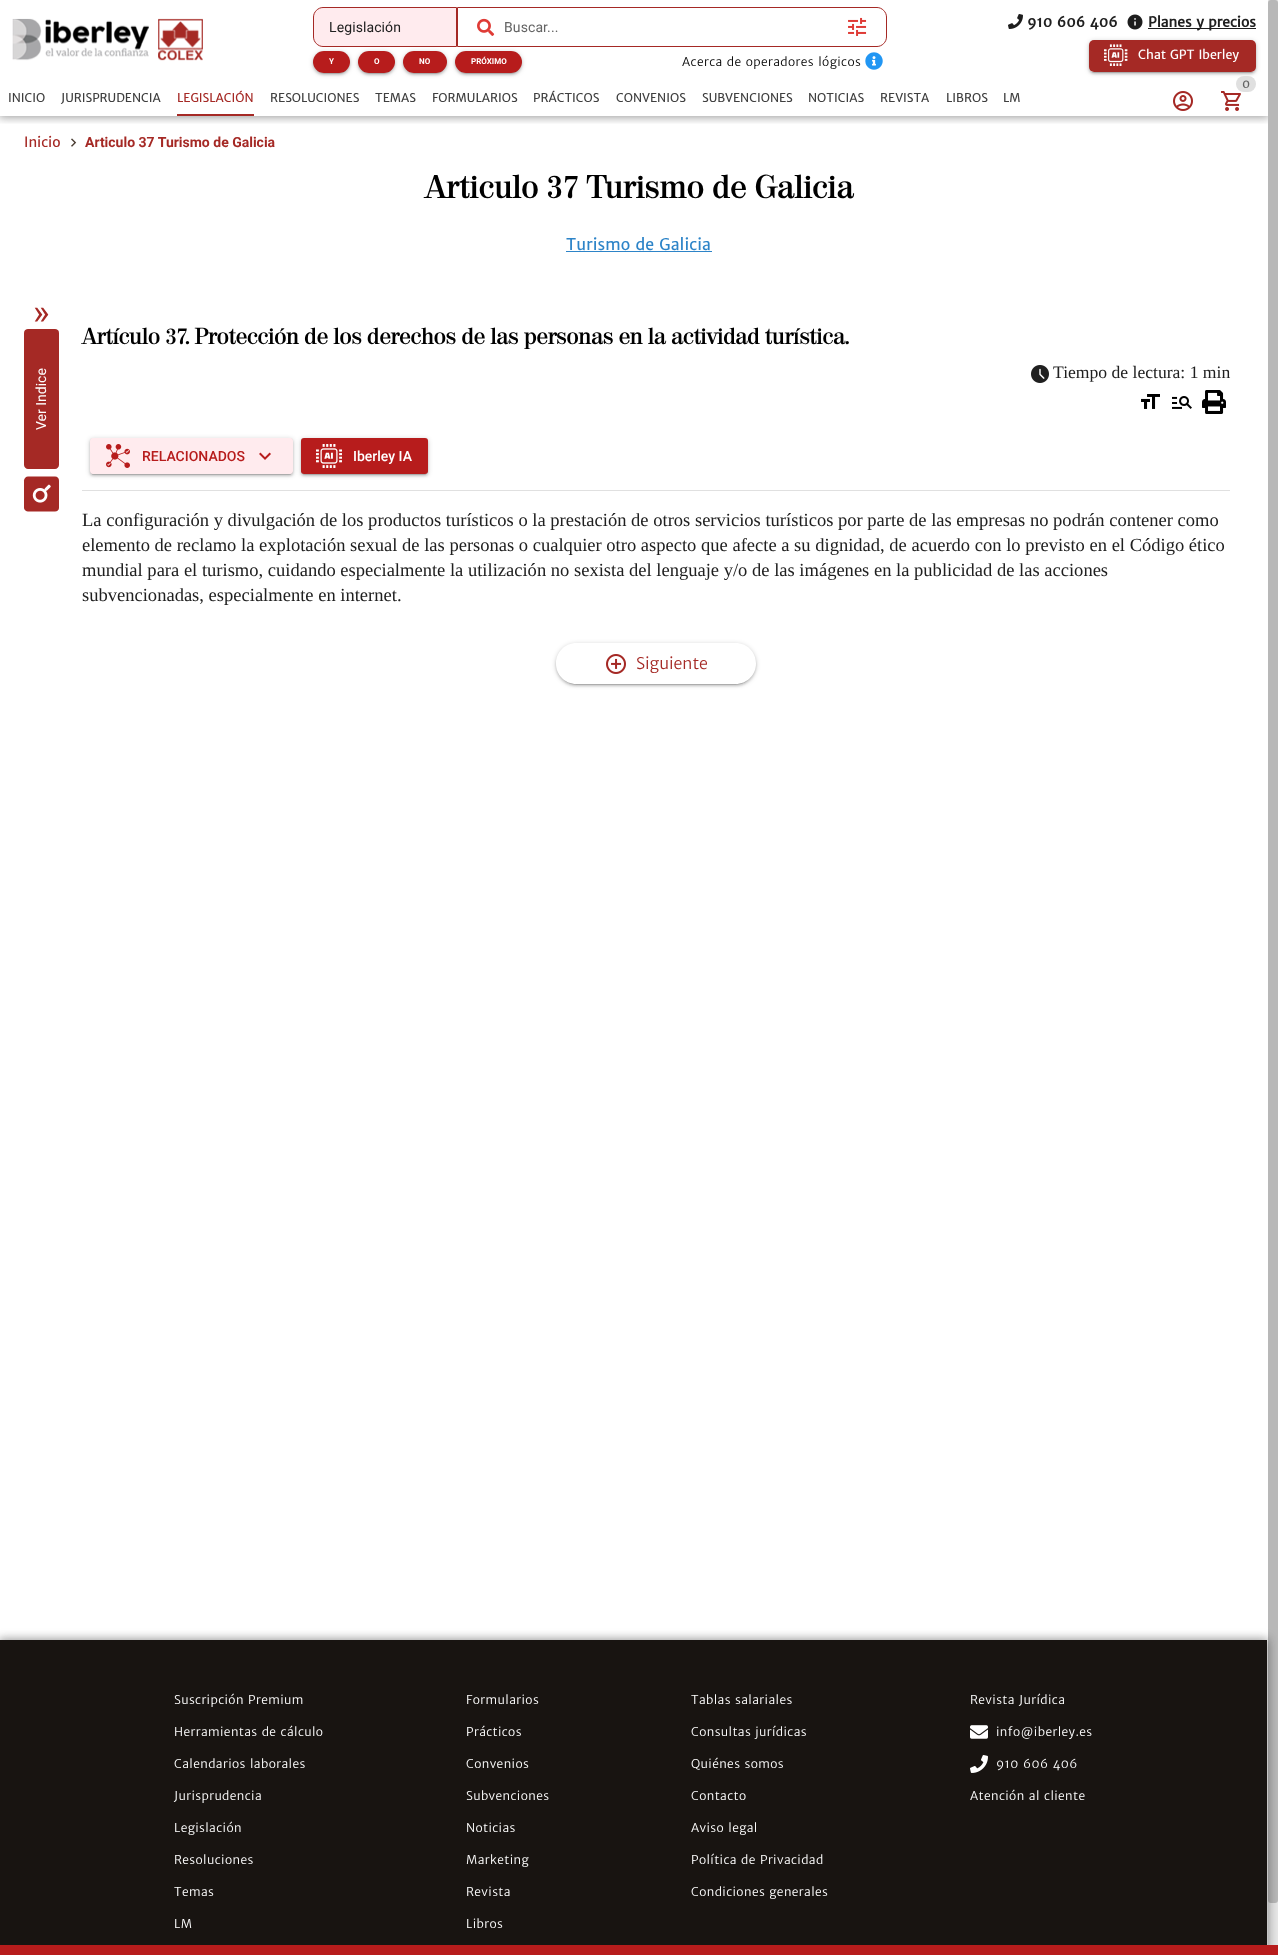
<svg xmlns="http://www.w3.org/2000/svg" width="1278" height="1955">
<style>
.a{font:14px Roboto;letter-spacing:0.1px;fill:#202020}
.b{font:14px Roboto;letter-spacing:0.1px;fill:#646464}
.c{font:bold 8px Roboto;fill:#fff}
.d{font:12px 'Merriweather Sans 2';letter-spacing:0.4px;fill:#000}
.e{font:bold 14px Merriweather Sans;fill:#202020}
.f{font:12.5px Merriweather Sans;fill:#fff}
.g{font:12px Merriweather Sans;fill:#646464}
.h{font:12px Merriweather Sans;fill:#3f3f3f}
.i{font:12px Merriweather Sans;fill:#a52925}
.j{font:14px Merriweather Sans;fill:#a52925}
.k{font:bold 14px Roboto;fill:#a52925}
.l{font:bold 32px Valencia;fill:#000}
.m{font:16px Merriweather Sans;letter-spacing:0.1px;fill:#2d84c8}
.n{font:35px Roboto;fill:#a52925}
.o{font:14px Roboto;fill:#fff}
.p{font:bold 22.4px Valencia;letter-spacing:-0.2px;fill:#000}
.q{font:17.6px Liberation Serif;fill:#202020}
.r{font:500 14px Roboto;fill:#b71c1c}
.s{font:500 14px Roboto;fill:#fff}
.t{font:18.55px Liberation Serif;fill:#202020}
.u{font:16px 'Merriweather Sans 2';fill:#a52925}
.v{font:12px 'Merriweather Sans 2';letter-spacing:0.4px;fill:#fff}
</style>
<defs>
<clipPath id="clip1"><path d="M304 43h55v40h-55zm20 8h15c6 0 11 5 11 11c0 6-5 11-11 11h-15c-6 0-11-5-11-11c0-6 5-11 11-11z" clip-rule="evenodd"/></clipPath>
<clipPath id="clip2"><path d="M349 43h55v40h-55zm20 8h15c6 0 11 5 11 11c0 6-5 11-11 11h-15c-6 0-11-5-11-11c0-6 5-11 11-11z" clip-rule="evenodd"/></clipPath>
<clipPath id="clip3"><path d="M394 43h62v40h-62zm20 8h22c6 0 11 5 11 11c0 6-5 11-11 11h-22c-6 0-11-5-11-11c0-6 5-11 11-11z" clip-rule="evenodd"/></clipPath>
<clipPath id="clip4"><path d="M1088 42h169v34h-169zm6-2h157c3 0 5 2 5 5v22c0 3-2 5-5 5h-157c-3 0-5-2-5-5v-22c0-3 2-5 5-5z" clip-rule="evenodd"/></clipPath>
<clipPath id="clip5"><path d="M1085 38h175v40h-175zm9 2h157c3 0 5 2 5 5v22c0 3-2 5-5 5h-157c-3 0-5-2-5-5v-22c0-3 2-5 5-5z" clip-rule="evenodd"/></clipPath>
<clipPath id="clip6"><path d="M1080 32h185v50h-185zm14 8h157c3 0 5 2 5 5v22c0 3-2 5-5 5h-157c-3 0-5-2-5-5v-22c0-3 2-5 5-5z" clip-rule="evenodd"/></clipPath>
<clipPath id="clip7"><path d="M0 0h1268v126H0z"/></clipPath>
<clipPath id="clip8"><path d="M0 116h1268v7H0z"/></clipPath>
<clipPath id="clip9"><path d="M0 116h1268v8H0z"/></clipPath>
<clipPath id="clip10"><path d="M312 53h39v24h-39zm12-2h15c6 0 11 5 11 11c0 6-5 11-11 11h-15c-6 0-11-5-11-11c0-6 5-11 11-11z" clip-rule="evenodd"/></clipPath>
<clipPath id="clip11"><path d="M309 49h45v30h-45zm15 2h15c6 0 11 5 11 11c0 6-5 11-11 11h-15c-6 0-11-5-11-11c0-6 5-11 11-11z" clip-rule="evenodd"/></clipPath>
<clipPath id="clip12"><path d="M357 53h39v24h-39zm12-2h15c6 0 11 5 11 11c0 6-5 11-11 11h-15c-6 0-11-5-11-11c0-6 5-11 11-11z" clip-rule="evenodd"/></clipPath>
<clipPath id="clip13"><path d="M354 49h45v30h-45zm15 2h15c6 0 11 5 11 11c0 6-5 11-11 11h-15c-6 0-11-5-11-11c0-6 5-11 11-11z" clip-rule="evenodd"/></clipPath>
<clipPath id="clip14"><path d="M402 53h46v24h-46zm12-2h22c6 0 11 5 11 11c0 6-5 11-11 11h-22c-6 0-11-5-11-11c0-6 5-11 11-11z" clip-rule="evenodd"/></clipPath>
<clipPath id="clip15"><path d="M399 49h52v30h-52zm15 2h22c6 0 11 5 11 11c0 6-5 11-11 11h-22c-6 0-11-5-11-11c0-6 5-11 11-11z" clip-rule="evenodd"/></clipPath>
<clipPath id="clip16"><path d="M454 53h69v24h-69zm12-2h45c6 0 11 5 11 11c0 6-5 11-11 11h-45c-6 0-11-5-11-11c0-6 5-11 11-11z" clip-rule="evenodd"/></clipPath>
<clipPath id="clip17"><path d="M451 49h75v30h-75zm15 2h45c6 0 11 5 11 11c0 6-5 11-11 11h-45c-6 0-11-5-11-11c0-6 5-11 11-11z" clip-rule="evenodd"/></clipPath>
<clipPath id="clip18"><path d="M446 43h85v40h-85zm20 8h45c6 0 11 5 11 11c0 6-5 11-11 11h-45c-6 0-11-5-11-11c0-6 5-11 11-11z" clip-rule="evenodd"/></clipPath>
<clipPath id="clip19"><path d="M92 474h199v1H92z"/></clipPath>
<clipPath id="clip20"><path d="M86 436h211v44h-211zm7 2h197c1.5 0 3 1.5 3 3v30c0 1.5-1.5 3-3 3h-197c-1.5 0-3-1.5-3-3v-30c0-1.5 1.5-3 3-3z" clip-rule="evenodd"/></clipPath>
<clipPath id="clip21"><path d="M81 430h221v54h-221zm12 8h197c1.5 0 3 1.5 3 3v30c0 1.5-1.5 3-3 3h-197c-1.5 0-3-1.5-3-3v-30c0-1.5 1.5-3 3-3z" clip-rule="evenodd"/></clipPath>
<clipPath id="clip22"><path d="M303 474h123v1H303z"/></clipPath>
<clipPath id="clip23"><path d="M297 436h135v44h-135zm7 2h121c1.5 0 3 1.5 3 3v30c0 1.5-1.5 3-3 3h-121c-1.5 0-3-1.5-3-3v-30c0-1.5 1.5-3 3-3z" clip-rule="evenodd"/></clipPath>
<clipPath id="clip24"><path d="M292 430h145v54h-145zm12 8h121c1.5 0 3 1.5 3 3v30c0 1.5-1.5 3-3 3h-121c-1.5 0-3-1.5-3-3v-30c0-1.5 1.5-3 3-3z" clip-rule="evenodd"/></clipPath>
<clipPath id="clip25"><path d="M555 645h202v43h-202zm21.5-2h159c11.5 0 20.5 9 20.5 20.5c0 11.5-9 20.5-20.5 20.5h-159c-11.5 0-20.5-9-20.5-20.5c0-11.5 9-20.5 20.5-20.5z" clip-rule="evenodd"/></clipPath>
<clipPath id="clip26"><path d="M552 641h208v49h-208zm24.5 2h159c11.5 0 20.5 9 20.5 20.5c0 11.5-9 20.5-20.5 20.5h-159c-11.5 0-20.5-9-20.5-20.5c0-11.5 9-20.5 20.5-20.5z" clip-rule="evenodd"/></clipPath>
<clipPath id="clip27"><path d="M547 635h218v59h-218zm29.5 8h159c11.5 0 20.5 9 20.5 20.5c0 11.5-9 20.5-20.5 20.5h-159c-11.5 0-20.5-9-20.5-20.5c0-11.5 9-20.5 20.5-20.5z" clip-rule="evenodd"/></clipPath>
</defs>
<rect width="100%" height="100%" fill="#fff"/>
<path fill="#e6e6e6" d="M1268 0h10v1945H1268z"/>
<image href="1.png" x="12" y="18" width="191" height="43"/>
<path fill="#ffebee" stroke="#a52925" d="M323 7.5h133.5v39h-133.5c-5 0-9.5-4.5-9.5-9.5v-20c0-5 4.5-9.5 9.5-9.5z"/>
<path fill="none" stroke="#a52925" d="M457.5 7.5h419.5c5 0 9.5 4.5 9.5 9.5v20c0 5-4.5 9.5-9.5 9.5h-419.5z"/>
<image href="2.png" x="477" y="18" width="18" height="18"/>
<image href="3.png" x="848" y="17" width="19" height="19"/>
<rect fill="#b71c1c" x="313" y="51" width="37" height="22" rx="11"/>
<g clip-path="url(#clip1)">
<rect fill="#00000033" filter="blur(2.5px)" x="313" y="52" width="37" height="22" rx="11"/>
</g>
<rect fill="#b71c1c" x="358" y="51" width="37" height="22" rx="11"/>
<g clip-path="url(#clip2)">
<rect fill="#00000033" filter="blur(2.5px)" x="358" y="52" width="37" height="22" rx="11"/>
</g>
<rect fill="#b71c1c" x="403" y="51" width="44" height="22" rx="11"/>
<g clip-path="url(#clip3)">
<rect fill="#00000033" filter="blur(2.5px)" x="403" y="52" width="44" height="22" rx="11"/>
</g>
<rect fill="#b71c1c" x="455" y="51" width="67" height="22" rx="11"/>
<image href="4.png" x="865" y="52" width="18" height="18"/>
<image href="5.png" x="1008" y="14" width="15" height="15"/>
<image href="6.png" x="1127" y="14" width="16" height="16"/>
<path fill="#1d1d1d" d="M1148 28h108v1H1148z"/>
<rect fill="#a52925" x="1089" y="40" width="167" height="32" rx="5"/>
<g clip-path="url(#clip4)">
<rect fill="#0000001f" filter="blur(0.5px)" x="1091" y="45" width="163" height="28" rx="3"/>
</g>
<g clip-path="url(#clip5)">
<rect fill="#00000024" filter="blur(1px)" x="1089" y="42" width="167" height="32" rx="5"/>
</g>
<g clip-path="url(#clip6)">
<rect fill="#00000033" filter="blur(2.5px)" x="1089" y="41" width="167" height="32" rx="5"/>
</g>
<image href="7.png" x="1104" y="44" width="24" height="22"/>
<image href="8.png" x="1221" y="91" width="20" height="20"/>
<rect fill="#e0e0e0" x="1236" y="76" width="20" height="16" rx="8"/>
<image href="9.png" x="1173" y="91" width="20" height="20"/>
<path fill="#a52925" d="M177 114h77v2H177z"/>
<rect fill="#b8b8b8" x="1268" width="10" height="1903" rx="3"/>
<g clip-path="url(#clip7)">
<g clip-path="url(#clip8)">
<path fill="#0000003d" filter="blur(5px)" d="M0 0h1268v116H0z"/>
</g>
</g>
<g clip-path="url(#clip7)">
<g clip-path="url(#clip9)">
<path fill="#00000033" filter="blur(5px)" d="M-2 -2h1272v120H-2z"/>
</g>
</g>
<g clip-path="url(#clip10)">
<rect fill="#0000001f" filter="blur(0.5px)" x="315" y="56" width="33" height="18" rx="9"/>
</g>
<g clip-path="url(#clip11)">
<rect fill="#00000024" filter="blur(1px)" x="313" y="53" width="37" height="22" rx="11"/>
</g>
<g clip-path="url(#clip12)">
<rect fill="#0000001f" filter="blur(0.5px)" x="360" y="56" width="33" height="18" rx="9"/>
</g>
<g clip-path="url(#clip13)">
<rect fill="#00000024" filter="blur(1px)" x="358" y="53" width="37" height="22" rx="11"/>
</g>
<g clip-path="url(#clip14)">
<rect fill="#0000001f" filter="blur(0.5px)" x="405" y="56" width="40" height="18" rx="9"/>
</g>
<g clip-path="url(#clip15)">
<rect fill="#00000024" filter="blur(1px)" x="403" y="53" width="44" height="22" rx="11"/>
</g>
<g clip-path="url(#clip16)">
<rect fill="#0000001f" filter="blur(0.5px)" x="457" y="56" width="63" height="18" rx="9"/>
</g>
<g clip-path="url(#clip17)">
<rect fill="#00000024" filter="blur(1px)" x="455" y="53" width="67" height="22" rx="11"/>
</g>
<g clip-path="url(#clip18)">
<rect fill="#00000033" filter="blur(2.5px)" x="455" y="52" width="67" height="22" rx="11"/>
</g>
<image href="10.png" x="71" y="138" width="6" height="9"/>
<path fill="#2d84c8" d="M566 251h146v1H566z"/>
<path fill="#a52925" d="M24 465v-132c0-3 2-4 4-4h27c2 0 4 1 4 4v132c0 2-2 4-4 4h-27c-2 0-4-2-4-4z"/>
<path fill="#a52925" d="M24 507.5v-27c0-2 2-4 4-4h27c2.5 0 4 2 4 4v27c0 2.5-1.5 4-4 4h-27c-2 0-4-1.5-4-4z"/>
<image href="11.png" x="32" y="484" width="19" height="19"/>
<image href="12.png" x="1031" y="365" width="18" height="18"/>
<image href="13.png" x="1141" y="394" width="19" height="15"/>
<image href="14.png" x="1172" y="396" width="20" height="13"/>
<image href="15.png" x="1202" y="390" width="24" height="24"/>
<rect fill="#ffebee" x="90" y="438" width="203" height="36" rx="3"/>
<g clip-path="url(#clip19)">
<rect fill="#0000001f" filter="blur(0.5px)" x="92" y="443" width="199" height="32" rx="1"/>
</g>
<g clip-path="url(#clip20)">
<rect fill="#00000024" filter="blur(1px)" x="90" y="440" width="203" height="36" rx="3"/>
</g>
<g clip-path="url(#clip21)">
<rect fill="#00000033" filter="blur(2.5px)" x="90" y="439" width="203" height="36" rx="3"/>
</g>
<image href="16.png" x="106" y="444" width="24" height="24"/>
<image href="17.png" x="259" y="452" width="12" height="8"/>
<rect fill="#b71c1c" x="301" y="438" width="127" height="36" rx="3"/>
<g clip-path="url(#clip22)">
<rect fill="#0000001f" filter="blur(0.5px)" x="303" y="443" width="123" height="32" rx="1"/>
</g>
<g clip-path="url(#clip23)">
<rect fill="#00000024" filter="blur(1px)" x="301" y="440" width="127" height="36" rx="3"/>
</g>
<g clip-path="url(#clip24)">
<rect fill="#00000033" filter="blur(2.5px)" x="301" y="439" width="127" height="36" rx="3"/>
</g>
<image href="18.png" x="316" y="444" width="26" height="24"/>
<path fill="#e0e0e0" d="M82 490h1148v1H82z"/>
<g clip-path="url(#clip25)">
<rect fill="#0000001f" filter="blur(0.5px)" x="558" y="648" width="196" height="37" rx="18.5"/>
</g>
<g clip-path="url(#clip26)">
<rect fill="#00000024" filter="blur(1px)" x="556" y="645" width="200" height="41" rx="20.5"/>
</g>
<g clip-path="url(#clip27)">
<rect fill="#00000033" filter="blur(2.5px)" x="556" y="644" width="200" height="41" rx="20.5"/>
</g>
<image href="19.png" x="606" y="654" width="20" height="20"/>
<path fill="#0000003d" filter="blur(5px)" d="M0 1640h1267v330H0z"/>
<path fill="#00000033" filter="blur(5px)" d="M-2 1638h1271v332H-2z"/>
<path fill="#181411" d="M0 1640h1267v305H0z"/>
<image href="20.png" x="970" y="1725" width="18" height="14"/>
<image href="21.png" x="970" y="1755" width="18" height="18"/>
<path fill="#b71c1c" d="M0 1945h1278v10H0z"/>
<text class="a" x="329" y="32">Legislación</text>
<text class="b" x="504" y="32">Buscar...</text>
<text class="c" x="329" y="64">Y</text>
<text class="c" x="374" y="64">O</text>
<text class="c" x="419" y="64">NO</text>
<text class="c" x="471" y="64">PRÓXIMO</text>
<text class="d" x="682" y="66">Acerca de operadores lógicos</text>
<text class="e" x="1027" y="27">910 606 406</text>
<text class="e" x="1148" y="27">Planes y precios</text>
<text class="f" x="1138" y="59">Chat GPT Iberley</text>
<text class="g" x="1242" y="88">0</text>
<text class="h" x="8" y="102">INICIO</text>
<text class="h" x="61" y="102">JURISPRUDENCIA</text>
<text class="i" x="177" y="102">LEGISLACIÓN</text>
<text class="h" x="270" y="102">RESOLUCIONES</text>
<text class="h" x="375" y="102">TEMAS</text>
<text class="h" x="432" y="102">FORMULARIOS</text>
<text class="h" x="533" y="102">PRÁCTICOS</text>
<text class="h" x="616" y="102">CONVENIOS</text>
<text class="h" x="702" y="102">SUBVENCIONES</text>
<text class="h" x="808" y="102">NOTICIAS</text>
<text class="h" x="880" y="102">REVISTA</text>
<text class="h" x="946" y="102">LIBROS</text>
<text class="h" x="1003" y="102">LM</text>
<text class="j" x="24" y="147">Inicio</text>
<text class="k" x="85" y="147">Articulo 37 Turismo de Galicia</text>
<text class="l" x="425" y="198">Articulo 37 Turismo de Galicia</text>
<text class="m" x="566" y="250">Turismo de Galicia</text>
<text class="n" x="33" y="324">»</text>
<text class="o" x="46" y="430" transform="rotate(-90 46 430)">Ver Indice</text>
<text class="p" x="82" y="344">Artículo 37. Protección de los derechos de las personas en la actividad turística.</text>
<text class="q" x="1053" y="378">Tiempo de lectura: 1 min</text>
<text class="r" x="142" y="461">RELACIONADOS</text>
<text class="s" x="353" y="461">Iberley IA</text>
<text class="t" x="82" y="526">La configuración y divulgación de los productos turísticos o la prestación de otros servicios turísticos por parte de las empresas no podrán contener como</text>
<text class="t" x="82" y="551">elemento de reclamo la explotación sexual de las personas o cualquier otro aspecto que afecte a su dignidad, de acuerdo con lo previsto en el Código ético</text>
<text class="t" x="82" y="576">mundial para el turismo, cuidando especialmente la utilización no sexista del lenguaje y/o de las imágenes en la publicidad de las acciones</text>
<text class="t" x="82" y="601">subvencionadas, especialmente en internet.</text>
<text class="u" x="636" y="669">Siguiente</text>
<text class="v" x="174" y="1704">Suscripción Premium</text>
<text class="v" x="174" y="1736">Herramientas de cálculo</text>
<text class="v" x="174" y="1768">Calendarios laborales</text>
<text class="v" x="174" y="1800">Jurisprudencia</text>
<text class="v" x="174" y="1832">Legislación</text>
<text class="v" x="174" y="1864">Resoluciones</text>
<text class="v" x="174" y="1896">Temas</text>
<text class="v" x="174" y="1928">LM</text>
<text class="v" x="466" y="1704">Formularios</text>
<text class="v" x="466" y="1736">Prácticos</text>
<text class="v" x="466" y="1768">Convenios</text>
<text class="v" x="466" y="1800">Subvenciones</text>
<text class="v" x="466" y="1832">Noticias</text>
<text class="v" x="466" y="1864">Marketing</text>
<text class="v" x="466" y="1896">Revista</text>
<text class="v" x="466" y="1928">Libros</text>
<text class="v" x="691" y="1704">Tablas salariales</text>
<text class="v" x="691" y="1736">Consultas jurídicas</text>
<text class="v" x="691" y="1768">Quiénes somos</text>
<text class="v" x="691" y="1800">Contacto</text>
<text class="v" x="691" y="1832">Aviso legal</text>
<text class="v" x="691" y="1864">Política de Privacidad</text>
<text class="v" x="691" y="1896">Condiciones generales</text>
<text class="v" x="970" y="1704">Revista Jurídica</text>
<text class="v" x="996" y="1736">info@iberley.es</text>
<text class="v" x="996" y="1768">910 606 406</text>
<text class="v" x="970" y="1800">Atención al cliente</text>
</svg>
